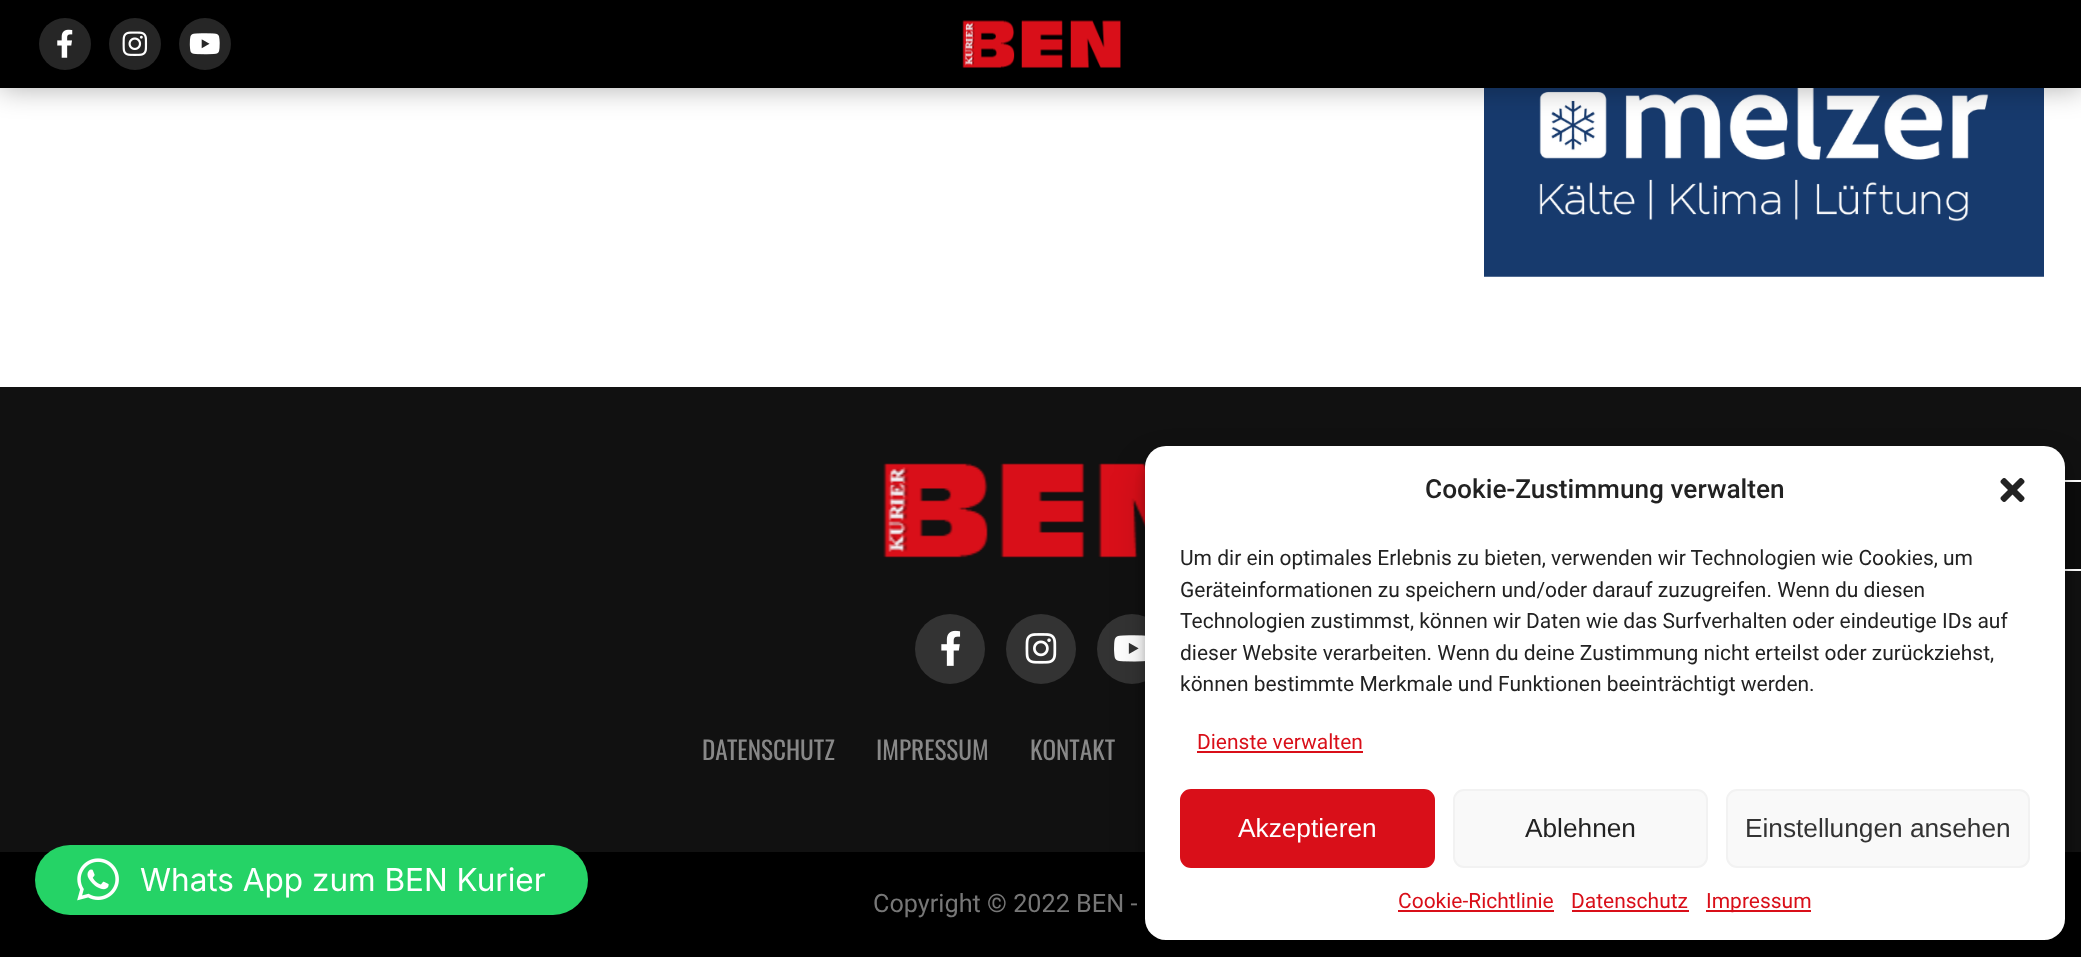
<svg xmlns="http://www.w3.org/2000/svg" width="2081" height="957">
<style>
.a{font:500 26.25px Roboto;fill:#222}
.b{font:21px Roboto;fill:#222}
.c{font:21px Roboto;fill:#d90f19}
.d{font:26.25px Liberation Sans;fill:#fff}
.e{font:26.25px Liberation Sans;fill:#222}
.f{font:26.25px Liberation Sans;fill:#333}
.g{font:31.5px Inter;fill:#fff}
.h{font:25.25px Oswald;fill:#888}
.i{font:25.25px Roboto;fill:#777}
</style>
<rect width="100%" height="100%" fill="#fff"/>
<path fill="#111" d="M0 387h2081v465H0z"/>
<path fill="#0c0c0c" d="M2065 482h16v87H2065z"/>
<path fill="#fff" d="M2065 480h16v2H2065z"/>
<path fill="#fff" d="M2065 569h16v2H2065z"/>
<image href="8.png" x="883" y="463" width="263" height="95"/>
<circle fill="#333" cx="1132" cy="649" r="35"/>
<image href="11.png" x="1114" y="635" width="31" height="27"/>
<path fill="#000" d="M0 852h2081v105H0z"/>
<rect fill="#0000003b" filter="blur(5px)" x="1145" y="457" width="920" height="493" rx="21"/>
<rect fill="#00000030" filter="blur(17.5px)" x="1145" y="464" width="920" height="493" rx="21"/>
<rect fill="#fff" x="1145" y="446" width="920" height="494" rx="21"/>
<image href="1.png" x="2000" y="478" width="25" height="24"/>
<path fill="#d90f19" d="M1197 751h166v2H1197z"/>
<rect fill="#d90f19" stroke="#d90f19" stroke-width="2" x="1181" y="790" width="253" height="77" rx="10"/>
<rect fill="#f9f9f9" stroke="#f2f2f2" stroke-width="2" x="1454" y="790" width="253" height="77" rx="10"/>
<rect fill="#f9f9f9" stroke="#f2f2f2" stroke-width="2" x="1727" y="790" width="302" height="77" rx="10"/>
<path fill="#d90f19" d="M1398 910h156v2H1398z"/>
<path fill="#d90f19" d="M1572 910h117v2H1572z"/>
<path fill="#d90f19" d="M1706 910h105v2H1706z"/>
<rect fill="#25d366" x="35" y="845" width="553" height="70" rx="35"/>
<image href="2.png" x="77" y="858" width="42" height="43"/>
<image href="7.png" x="1484" y="88" width="560" height="189"/>
<path fill="#0000004d" filter="blur(14px)" d="M0 2h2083v87H0z"/>
<path fill="#000" d="M0 0h2081v88H0z"/>
<circle fill="#262626" cx="65" cy="44" r="26"/>
<image href="3.png" x="57" y="29" width="16" height="29"/>
<circle fill="#262626" cx="135" cy="44" r="26"/>
<image href="4.png" x="122" y="31" width="26" height="25"/>
<circle fill="#262626" cx="205" cy="44" r="26"/>
<image href="5.png" x="189" y="33" width="31" height="22"/>
<image href="6.png" x="962" y="20" width="159" height="48"/>
<circle fill="#333" cx="950" cy="649" r="35"/>
<image href="9.png" x="941" y="630" width="20" height="36"/>
<circle fill="#333" cx="1041" cy="649" r="35"/>
<image href="10.png" x="1025" y="633" width="32" height="31"/>
<text class="a" x="1425" y="498">Cookie-Zustimmung verwalten</text>
<text class="b" x="1180" y="565">Um dir ein optimales Erlebnis zu bieten, verwenden wir Technologien wie Cookies, um</text>
<text class="b" x="1180" y="597">Geräteinformationen zu speichern und/oder darauf zuzugreifen. Wenn du diesen</text>
<text class="b" x="1180" y="628">Technologien zustimmst, können wir Daten wie das Surfverhalten oder eindeutige IDs auf</text>
<text class="b" x="1180" y="660">dieser Website verarbeiten. Wenn du deine Zustimmung nicht erteilst oder zurückziehst,</text>
<text class="b" x="1180" y="691">können bestimmte Merkmale und Funktionen beeinträchtigt werden.</text>
<text class="c" x="1197" y="749">Dienste verwalten</text>
<text class="d" x="1238" y="837">Akzeptieren</text>
<text class="e" x="1525" y="837">Ablehnen</text>
<text class="f" x="1745" y="837">Einstellungen ansehen</text>
<text class="c" x="1398" y="908">Cookie-Richtlinie</text>
<text class="c" x="1571" y="908">Datenschutz</text>
<text class="c" x="1706" y="908">Impressum</text>
<text class="g" x="140" y="891">Whats App zum BEN Kurier</text>
<text class="h" x="702" y="760">DATENSCHUTZ</text>
<text class="h" x="876" y="760">IMPRESSUM</text>
<text class="h" x="1030" y="760">KONTAKT</text>
<text class="i" x="873" y="912">Copyright © 2022 BEN -</text>
</svg>
